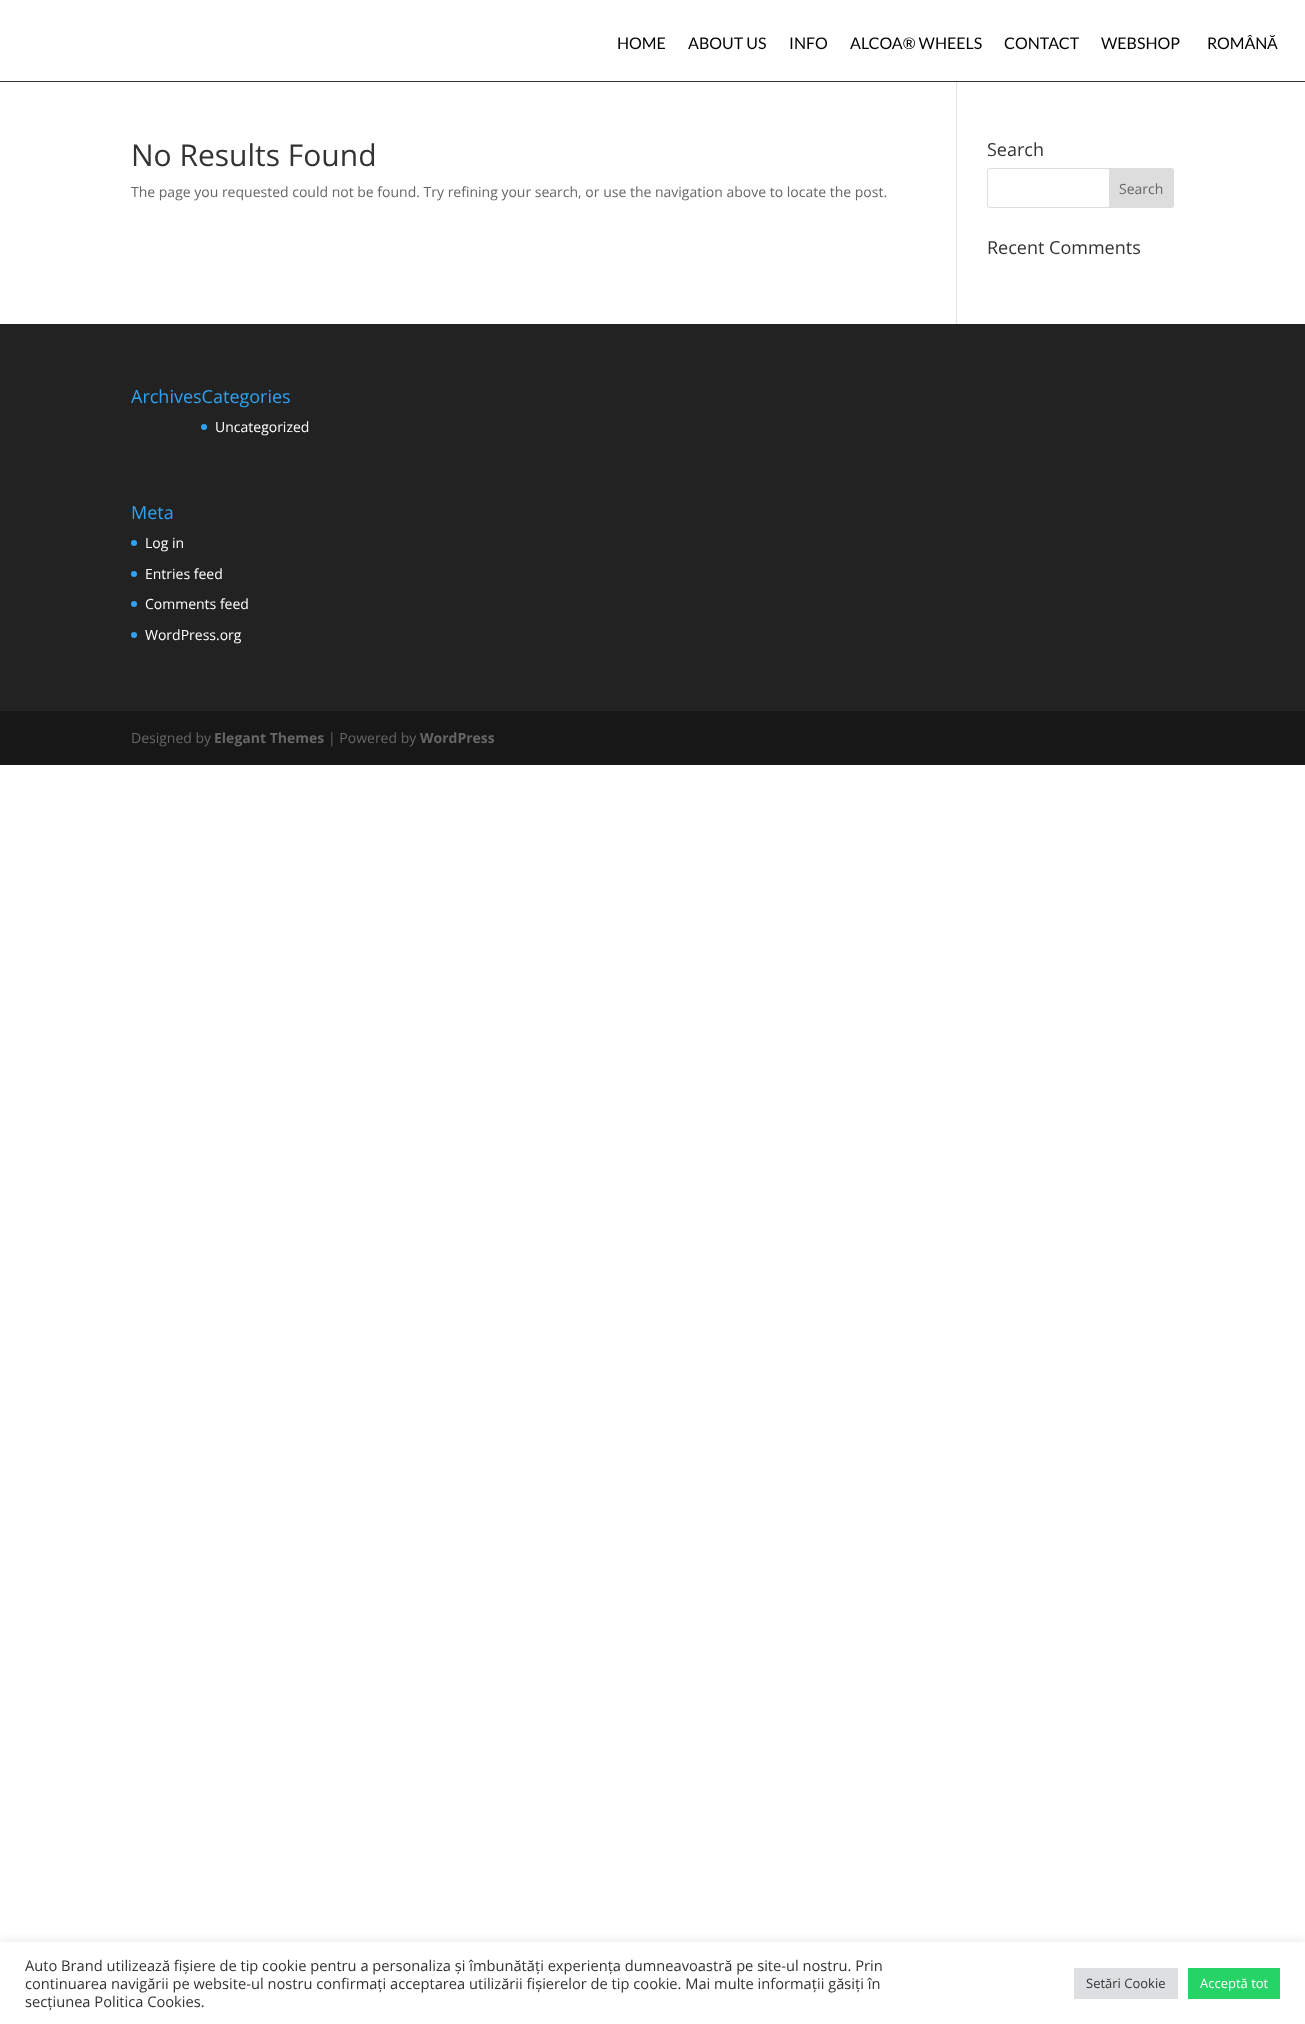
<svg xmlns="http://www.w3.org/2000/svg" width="1305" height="2024">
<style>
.a{font:16px Lato;fill:#000}
.b{font:16px Liberation Sans;fill:#000}
.c{font:30px Open Sans;fill:#333}
.d{font:14px Open Sans;fill:#666}
.e{font:18px Open Sans;fill:#333}
.f{font:18px Open Sans;fill:#2ea3f2}
.g{font:14px Open Sans;fill:#fff}
.h{font:bold 14px Open Sans;fill:#666}
.i{font:14.67px Open Sans;fill:#333}
.j{font:13px Open Sans;fill:#333}
.k{font:13px Open Sans;fill:#fff}
</style>
<defs>
<clipPath id="clip1"><path d="M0 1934h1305v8H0z"/></clipPath>
</defs>
<rect width="100%" height="100%" fill="#fff"/>
<path fill="#333" d="M0 81h1305v1H0z"/>
<path fill="#e2e2e2" d="M956 82h1v242H956z"/>
<rect fill="none" stroke="#ddd" x="987.5" y="168.5" width="186" height="39" rx="2.5"/>
<path fill="#ddd" stroke="#ddd" d="M1109.5 168.5h61.5c1.5 0 2.5 1 2.5 2.5v34c0 1.5-1 2.5-2.5 2.5h-61.5z"/>
<path fill="#222" d="M0 324h1305v387H0z"/>
<circle fill="#2ea3f2" cx="204" cy="427" r="3"/>
<circle fill="#2ea3f2" cx="134" cy="543" r="3"/>
<circle fill="#2ea3f2" cx="134" cy="574" r="3"/>
<circle fill="#2ea3f2" cx="134" cy="604" r="3"/>
<circle fill="#2ea3f2" cx="134" cy="635" r="3"/>
<path fill="#171717" d="M0 711h1305v54H0z"/>
<g clip-path="url(#clip1)">
<path fill="#acabab4d" filter="blur(5px)" d="M0 1941h1305v82H0z"/>
</g>
<path fill="#dedfe0" d="M1074 1968h104v31H1074z"/>
<path fill="#25d366" d="M1188 1968h92v31H1188z"/>
<text class="a" x="617" y="49">HOME</text>
<text class="a" x="688" y="49">ABOUT US</text>
<text class="a" x="789" y="49">INFO</text>
<text class="a" x="850" y="49">ALCOA® WHEELS</text>
<text class="a" x="1004" y="49">CONTACT</text>
<text class="a" x="1101" y="49">WEBSHOP</text>
<text class="a" x="1207" y="49">ROMÂN</text>
<text class="b" x="1267" y="49">Ă</text>
<text class="c" x="131" y="166">No Results Found</text>
<text class="d" x="131" y="197">The page you requested could not be found. Try refining your search, or use the navigation above to locate the post.</text>
<text class="e" x="987" y="156">Search</text>
<text class="d" x="1119" y="194">Search</text>
<text class="e" x="987" y="254">Recent Comments</text>
<text class="f" x="131" y="403">ArchivesCategories</text>
<text class="g" x="215" y="432">Uncategorized</text>
<text class="f" x="131" y="519">Meta</text>
<text class="g" x="145" y="548">Log in</text>
<text class="g" x="145" y="579">Entries feed</text>
<text class="g" x="145" y="609">Comments feed</text>
<text class="g" x="145" y="640">WordPress.org</text>
<text class="d" x="131" y="743">Designed by</text>
<text class="h" x="214" y="743">Elegant Themes</text>
<text class="d" x="328" y="743">| Powered by</text>
<text class="h" x="420" y="743">WordPress</text>
<text class="i" x="25" y="1971">Auto Brand utilizează fișiere de tip cookie pentru a personaliza și îmbunătăți experiența dumneavoastră pe site-ul nostru. Prin</text>
<text class="i" x="25" y="1989">continuarea navigării pe website-ul nostru confirmați acceptarea utilizării fișierelor de tip cookie. Mai multe informații găsiți în</text>
<text class="i" x="25" y="2007">secțiunea Politica Cookies.</text>
<text class="j" x="1086" y="1988">Setări Cookie</text>
<text class="k" x="1200" y="1988">Acceptă tot</text>
</svg>
